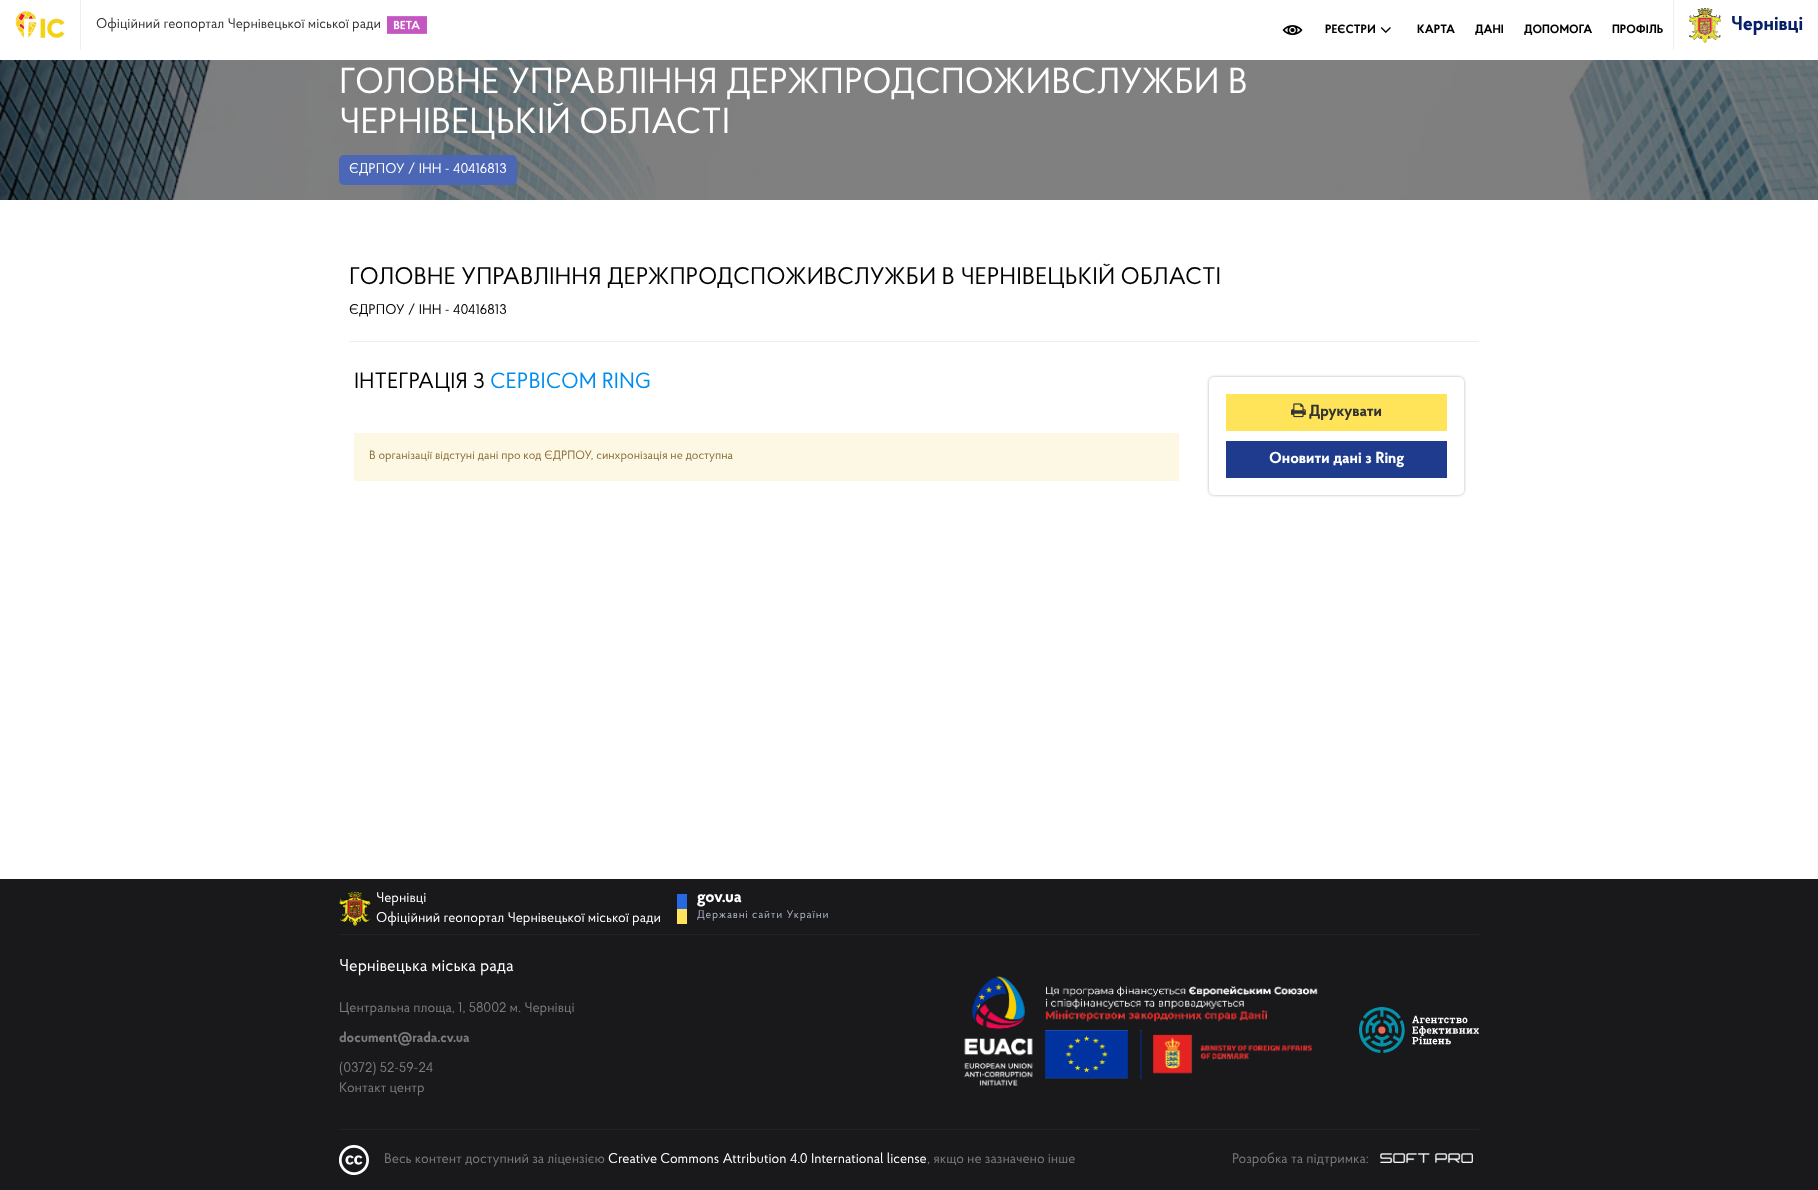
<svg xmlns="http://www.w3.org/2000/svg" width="1818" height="1190">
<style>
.a{font:14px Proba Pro;fill:#333}
.b{font:bold 12px Proba Pro;fill:#000}
.c{font:bold 20px Proba Pro;fill:#061f67}
.d{font:36px Proba Pro;fill:#fff}
.e{font:14px Proba Pro;fill:#fff}
.f{font:24px Proba Pro;fill:#000}
.g{font:14px Proba Pro;fill:#000}
.h{font:22px Proba Pro;fill:#000}
.i{font:22px Proba Pro;fill:#008def}
.j{font:12px Proba Pro;fill:#8a6d3b}
.k{font:bold 16px Proba Pro;fill:#333}
.l{font:bold 16px Proba Pro;fill:#fff}
.m{font:bold 17px Proba Pro;fill:#fff}
.n{font:11.25px Proba Pro;letter-spacing:0.8px;fill:#aab3c6}
.o{font:17px Proba Pro;fill:#fff}
.p{font:14px Proba Pro;fill:#7b7b7b}
.q{font:bold 14px Proba Pro;fill:#7b7b7b}
</style>
<rect width="100%" height="100%" fill="#fff"/>
<path fill="#eee" d="M80 0h1v50H80z"/>
<image href="1.png" x="15" y="11" width="50" height="27"/>
<image href="2.png" x="387" y="16" width="40" height="18"/>
<image href="3.png" x="1282" y="25" width="21" height="11"/>
<image href="4.png" x="1380" y="27" width="11" height="6"/>
<path fill="#eee" d="M1673 0h1v50H1673z"/>
<image href="5.png" x="1689" y="8" width="32" height="35"/>
<image href="6.png" x="0" y="60" width="1818" height="140"/>
<rect fill="#4c67b5" x="339" y="155" width="178" height="30" rx="5"/>
<path fill="#eee" d="M349 341h1130v1H349z"/>
<path fill="#fcf8e3" d="M354 433h825v48H354z"/>
<rect fill="#0404044d" filter="blur(1.5px)" x="1209" y="377" width="255" height="118" rx="5"/>
<rect fill="#fff" stroke="#fff" stroke-width="2" x="1210" y="378" width="253" height="116" rx="4"/>
<path fill="#ffe358" d="M1226 394h221v37H1226z"/>
<image href="7.png" x="1291" y="403" width="15" height="15"/>
<path fill="#1e3b8d" d="M1226 441h221v37H1226z"/>
<path fill="#19191b" d="M0 879h1818v311H0z"/>
<path fill="#232323" d="M339 934h1140v1H339z"/>
<image href="8.png" x="339" y="891" width="32" height="35"/>
<path fill="#2669e3" d="M677 894h10v15H677z"/>
<path fill="#ffe358" d="M677 909h10v15H677z"/>
<path fill="#232323" d="M339 1129h1140v1H339z"/>
<image href="9.png" x="964" y="976" width="354" height="110"/>
<image href="10.png" x="1359" y="1007" width="120" height="46"/>
<image href="11.png" x="339" y="1145" width="30" height="30"/>
<image href="12.png" x="1380" y="1153" width="93" height="10"/>
<text class="a" x="96" y="28">Офіційний геопортал Чернівецької міської ради</text>
<text class="b" x="1325" y="33">РЕЄСТРИ</text>
<text class="b" x="1417" y="33">КАРТА</text>
<text class="b" x="1475" y="33">ДАНІ</text>
<text class="b" x="1524" y="33">ДОПОМОГА</text>
<text class="b" x="1612" y="33">ПРОФІЛЬ</text>
<text class="c" x="1731" y="30">Чернівці</text>
<text class="d" x="339" y="93">ГОЛОВНЕ УПРАВЛІННЯ ДЕРЖПРОДСПОЖИВСЛУЖБИ В</text>
<text class="d" x="339" y="133">ЧЕРНІВЕЦЬКІЙ ОБЛАСТІ</text>
<text class="e" x="349" y="173">ЄДРПОУ / ІНН - 40416813</text>
<text class="f" x="349" y="284">ГОЛОВНЕ УПРАВЛІННЯ ДЕРЖПРОДСПОЖИВСЛУЖБИ В ЧЕРНІВЕЦЬКІЙ ОБЛАСТІ</text>
<text class="g" x="349" y="314">ЄДРПОУ / ІНН - 40416813</text>
<text class="h" x="354" y="388">ІНТЕГРАЦІЯ З</text>
<text class="i" x="490" y="388">СЕРВІСОМ RING</text>
<text class="j" x="369" y="459">В організації відстуні дані про код ЄДРПОУ, синхронізація не доступна</text>
<text class="k" x="1309" y="416">Друкувати</text>
<text class="l" x="1269" y="463">Оновити дані з Ring</text>
<text class="e" x="376" y="902">Чернівці</text>
<text class="e" x="376" y="922">Офіційний геопортал Чернівецької міської ради</text>
<text class="m" x="697" y="902">gov.ua</text>
<text class="n" x="697" y="918">Державні сайти України</text>
<text class="o" x="339" y="971">Чернівецька міська рада</text>
<text class="p" x="339" y="1012">Центральна площа, 1, 58002 м. Чернівці</text>
<text class="q" x="339" y="1042">document@rada.cv.ua</text>
<text class="p" x="339" y="1072">(0372) 52-59-24</text>
<text class="p" x="339" y="1092">Контакт центр</text>
<text class="p" x="384" y="1163">Весь контент доступний за ліцензією</text>
<text class="e" x="608" y="1163">Creative Commons Attribution 4.0 International license</text>
<text class="p" x="927" y="1163">, якщо не зазначено інше</text>
<text class="p" x="1232" y="1163">Розробка та підтримка:</text>
</svg>
